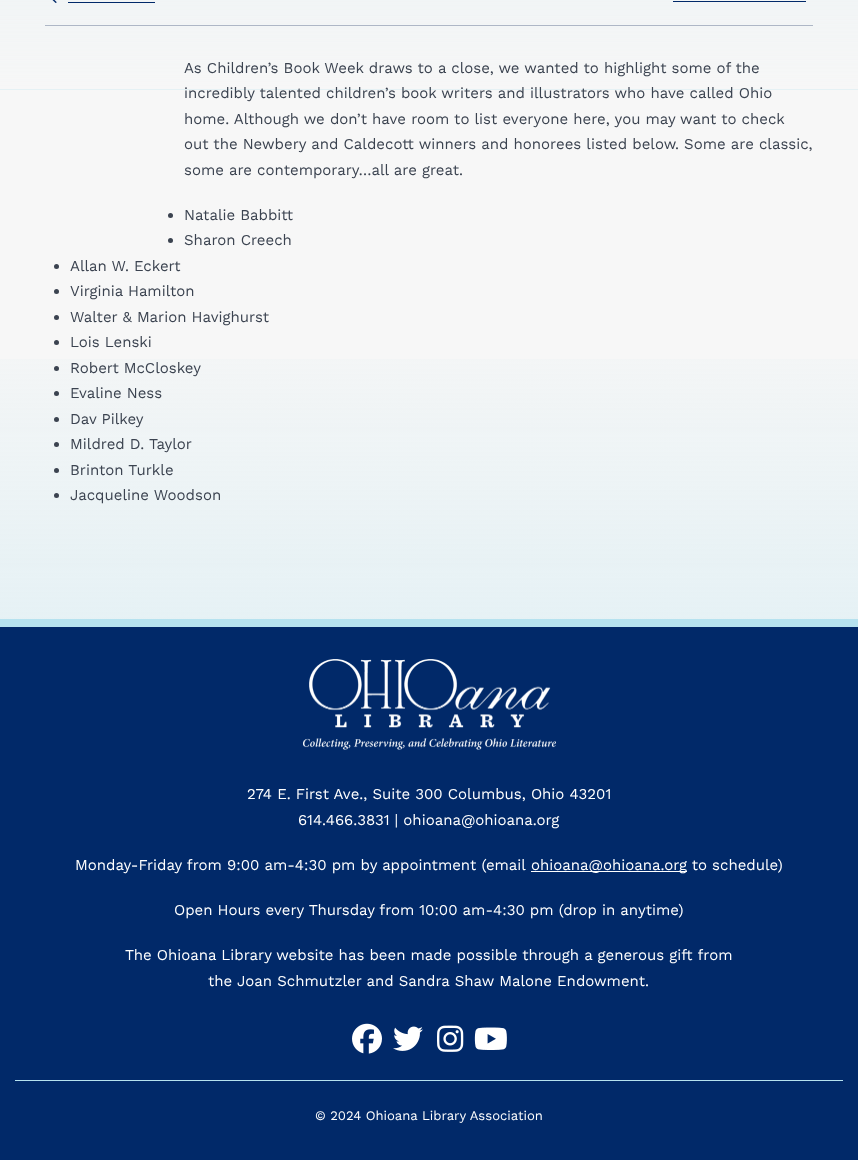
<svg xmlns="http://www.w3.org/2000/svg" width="858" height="1160">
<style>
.a{font:15px Work Sans;fill:#3b4350}
.b{font:15px Work Sans;fill:#fff}
.c{font:13.1px Work Sans;fill:#fff}
</style>
<rect width="100%" height="100%" fill="#f7f7f7"/>
<image href="1.png" x="0" y="0" width="858" height="90"/>
<image href="2.png" x="0" y="359" width="858" height="260"/>
<path fill="#aeb7c6" d="M45 25h768v1H45z"/>
<image href="3.png" x="52" y="0" width="5" height="3"/>
<path fill="#012969" d="M68 2h87v1H68z"/>
<path fill="#012969" d="M673 1h133v1H673z"/>
<circle fill="#3b4350" cx="170.5" cy="215.5" r="2.5"/>
<circle fill="#3b4350" cx="170.5" cy="240.5" r="2.5"/>
<circle fill="#3b4350" cx="56.5" cy="266.5" r="2.5"/>
<circle fill="#3b4350" cx="56.5" cy="291.5" r="2.5"/>
<circle fill="#3b4350" cx="56.5" cy="317.5" r="2.5"/>
<circle fill="#3b4350" cx="56.5" cy="342.5" r="2.5"/>
<circle fill="#3b4350" cx="56.5" cy="368.5" r="2.5"/>
<circle fill="#3b4350" cx="56.5" cy="393.5" r="2.5"/>
<circle fill="#3b4350" cx="56.5" cy="419.5" r="2.5"/>
<circle fill="#3b4350" cx="56.5" cy="444.5" r="2.5"/>
<circle fill="#3b4350" cx="56.5" cy="470.5" r="2.5"/>
<circle fill="#3b4350" cx="56.5" cy="495.5" r="2.5"/>
<path fill="#012969" d="M0 627h858v533H0z"/>
<path fill="#b6e2ef" d="M0 619h858v8H0z"/>
<image href="4.png" x="303" y="659" width="253" height="91"/>
<path fill="#fff" d="M531 871h156v1H531z"/>
<image href="5.png" x="352" y="1023" width="30" height="31"/>
<image href="6.png" x="393" y="1026" width="30" height="25"/>
<image href="7.png" x="437" y="1025" width="27" height="27"/>
<image href="8.png" x="474" y="1027" width="33" height="23"/>
<path fill="#b6e2ef" d="M15 1080h828v1H15z"/>
<text class="a" x="184" y="73">As Children’s Book Week draws to a close, we wanted to highlight some of the</text>
<text class="a" x="184" y="98">incredibly talented children’s book writers and illustrators who have called Ohio</text>
<text class="a" x="184" y="124">home. Although we don’t have room to list everyone here, you may want to check</text>
<text class="a" x="184" y="149">out the Newbery and Caldecott winners and honorees listed below. Some are classic,</text>
<text class="a" x="184" y="175">some are contemporary…all are great.</text>
<text class="a" x="184" y="220">Natalie Babbitt</text>
<text class="a" x="184" y="245">Sharon Creech</text>
<text class="a" x="70" y="271">Allan W. Eckert</text>
<text class="a" x="70" y="296">Virginia Hamilton</text>
<text class="a" x="70" y="322">Walter &amp; Marion Havighurst</text>
<text class="a" x="70" y="347">Lois Lenski</text>
<text class="a" x="70" y="373">Robert McCloskey</text>
<text class="a" x="70" y="398">Evaline Ness</text>
<text class="a" x="70" y="424">Dav Pilkey</text>
<text class="a" x="70" y="449">Mildred D. Taylor</text>
<text class="a" x="70" y="475">Brinton Turkle</text>
<text class="a" x="70" y="500">Jacqueline Woodson</text>
<text class="b" x="247" y="799">274 E. First Ave., Suite 300 Columbus, Ohio 43201</text>
<text class="b" x="298" y="825">614.466.3831 | ohioana@ohioana.org</text>
<text class="b" x="75" y="870">Monday-Friday from 9:00 am-4:30 pm by appointment (email</text>
<text class="b" x="531" y="870">ohioana@ohioana.org to schedule)</text>
<text class="b" x="174" y="915">Open Hours every Thursday from 10:00 am-4:30 pm (drop in anytime)</text>
<text class="b" x="125" y="960">The Ohioana Library website has been made possible through a generous gift from</text>
<text class="b" x="208" y="986">the Joan Schmutzler and Sandra Shaw Malone Endowment.</text>
<text class="c" x="315" y="1120">© 2024 Ohioana Library Association</text>
</svg>
